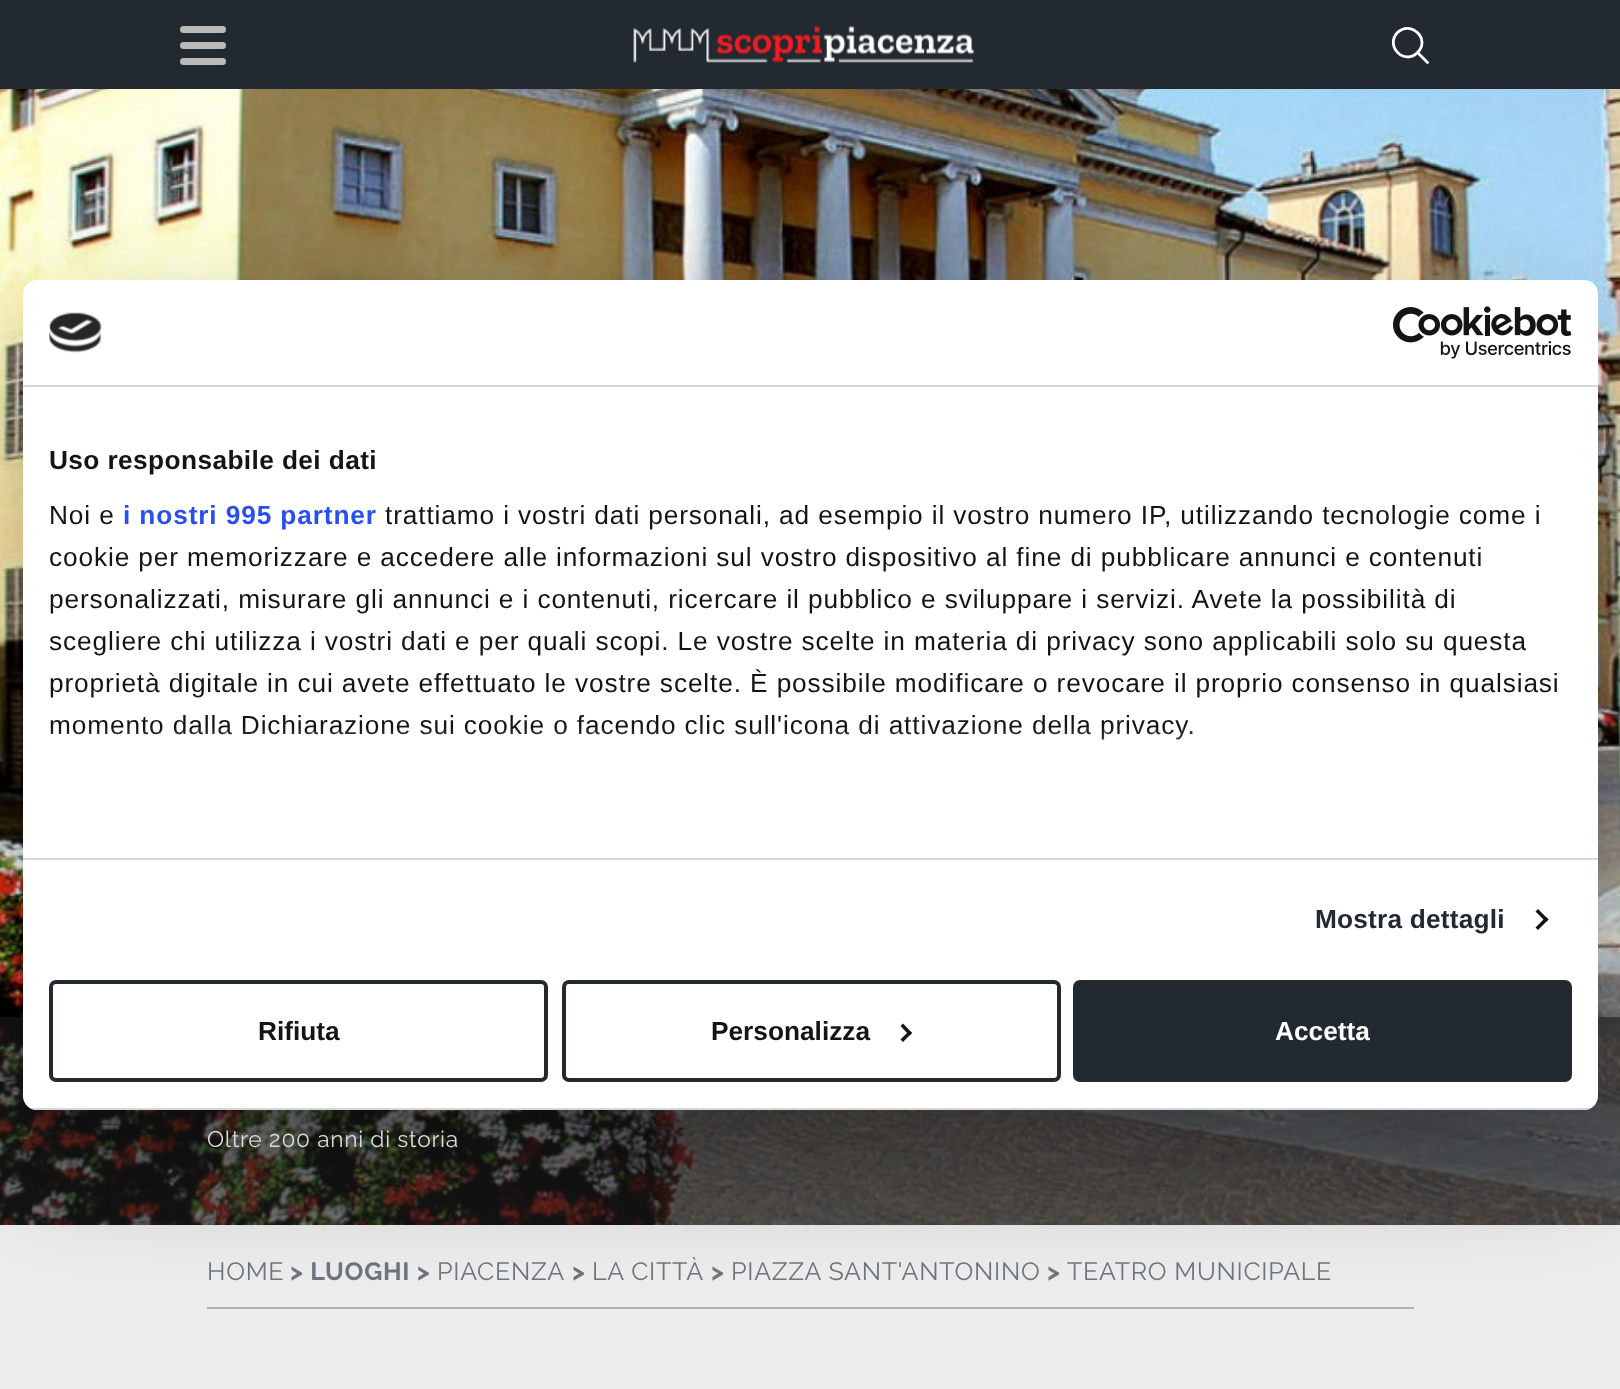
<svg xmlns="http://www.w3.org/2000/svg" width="1620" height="1389">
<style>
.a{font:bold 26.25px Liberation Sans;letter-spacing:0.4px;fill:#141414}
.b{font:26.25px Liberation Sans;letter-spacing:0.88px;fill:#141414}
.c{font:bold 26.25px Liberation Sans;letter-spacing:0.88px;fill:#2a4eef}
.d{font:bold 26.25px Liberation Sans;letter-spacing:0.2px;fill:#222931}
.e{font:bold 26.25px Liberation Sans;fill:#141414}
.f{font:bold 26.25px Liberation Sans;fill:#fff}
.g{font:22.75px Raleway;letter-spacing:0.7px;fill:#d9d9d9}
.h{font:25px Raleway;letter-spacing:0.7px;fill:#6c757d}
.i{font:bold 25px Raleway;letter-spacing:0.7px;fill:#6c757d}
</style>
<defs>
<clipPath id="clip1"><rect x="23" y="280" width="1575" height="830" rx="14"/></clipPath>
<linearGradient id="g1" gradientUnits="userSpaceOnUse" x1="799" y1="858" x2="799" y2="726"><stop offset="0" stop-color="#fff"/><stop offset="0.5" stop-color="#fff" stop-opacity="0.8"/><stop offset="1" stop-color="#fff" stop-opacity="0"/></linearGradient>
</defs>
<rect width="100%" height="100%" fill="#ededed"/>
<path fill="#222931" d="M0 0h1620v89H0z"/>
<rect fill="#bababa" x="180" y="26" width="46" height="7" rx="3.5"/>
<rect fill="#bababa" x="180" y="42" width="46" height="7" rx="3.5"/>
<rect fill="#bababa" x="180" y="58" width="46" height="7" rx="3.5"/>
<image href="1.png" x="633" y="25" width="342" height="38"/>
<path fill="none" stroke="#fff" stroke-width="2.8" stroke-linecap="round" stroke-linejoin="round" d="M1427.5 62.5l-10-10m0 0c13.5-13-6.5-33-20-20c-13 13.5 7 33.5 20 20z"/>
<image href="4.png" x="0" y="89" width="1620" height="1136"/>
<path fill="#20202099" d="M0 1017h1620v208H0z"/>
<path fill="#b2b2b2" d="M207 1307h1207v2H207z"/>
<rect fill="#0000004d" filter="blur(59.5px)" x="23" y="336" width="1575" height="830" rx="14"/>
<rect fill="#fff" x="23" y="280" width="1575" height="830" rx="14"/>
<path fill="#d6d6d6" d="M23 385h1575v2H23z"/>
<image href="2.png" x="49" y="312" width="53" height="41"/>
<image href="3.png" x="1393" y="306" width="179" height="53"/>
<path fill="#d6d6d6" d="M23 858h1575v2H23z"/>
<path fill="#141414" d="M1538 909l10.5 10.5l-2.5 2.5l-10.5-10.5z"/>
<path fill="#141414" d="M1546 917l2.5 2.5l-10.5 10.5l-2.5-2.5z"/>
<g clip-path="url(#clip1)">
<path fill="#d6d6d6" d="M23 1108h1575v2H23z"/>
</g>
<rect fill="none" stroke="#222931" stroke-width="4" x="51" y="982" width="495" height="98" rx="5"/>
<rect fill="none" stroke="#222931" stroke-width="4" x="564" y="982" width="495" height="98" rx="5"/>
<path fill="#141414" d="M903 1023.5l9 9.5l-2.5 2.5l-9-9.5z"/>
<path fill="#141414" d="M909.5 1030.5l2.5 2.5l-9 9l-2.5-2.5z"/>
<rect fill="#222931" stroke="#222931" stroke-width="4" x="1075" y="982" width="495" height="98" rx="5"/>
<text class="a" x="49" y="469">Uso responsabile dei dati</text>
<text class="b" x="49" y="524">Noi e</text>
<text class="c" x="123" y="524">i nostri 995 partner</text>
<text class="b" x="385" y="524">trattiamo i vostri dati personali, ad esempio il vostro numero IP, utilizzando tecnologie come i</text>
<text class="b" x="49" y="566">cookie per memorizzare e accedere alle informazioni sul vostro dispositivo al fine di pubblicare annunci e contenuti</text>
<text class="b" x="49" y="608">personalizzati, misurare gli annunci e i contenuti, ricercare il pubblico e sviluppare i servizi. Avete la possibilità di</text>
<text class="b" x="49" y="650">scegliere chi utilizza i vostri dati e per quali scopi. Le vostre scelte in materia di privacy sono applicabili solo su questa</text>
<text class="b" x="49" y="692">proprietà digitale in cui avete effettuato le vostre scelte. È possibile modificare o revocare il proprio consenso in qualsiasi</text>
<text class="b" x="49" y="734">momento dalla Dichiarazione sui cookie o facendo clic sull'icona di attivazione della privacy.</text>
<path fill="url(#g1)" d="M50 728h1142v12H50z"/>
<text class="d" x="1315" y="928">Mostra dettagli</text>
<text class="e" x="258" y="1040">Rifiuta</text>
<text class="e" x="711" y="1040">Personalizza</text>
<text class="f" x="1275" y="1040">Accetta</text>
<text class="g" x="207" y="1147">Oltre 200 anni di storia</text>
<text class="h" x="207" y="1280">HOME</text>
<text class="i" x="290" y="1280">&gt; LUOGHI &gt;</text>
<text class="h" x="437" y="1280">PIACENZA</text>
<text class="i" x="572" y="1280">&gt;</text>
<text class="h" x="592" y="1280">LA CITTÀ</text>
<text class="i" x="711" y="1280">&gt;</text>
<text class="h" x="731" y="1280">PIAZZA SANT'ANTONINO</text>
<text class="i" x="1047" y="1280">&gt;</text>
<text class="h" x="1067" y="1280">TEATRO MUNICIPALE</text>
</svg>
